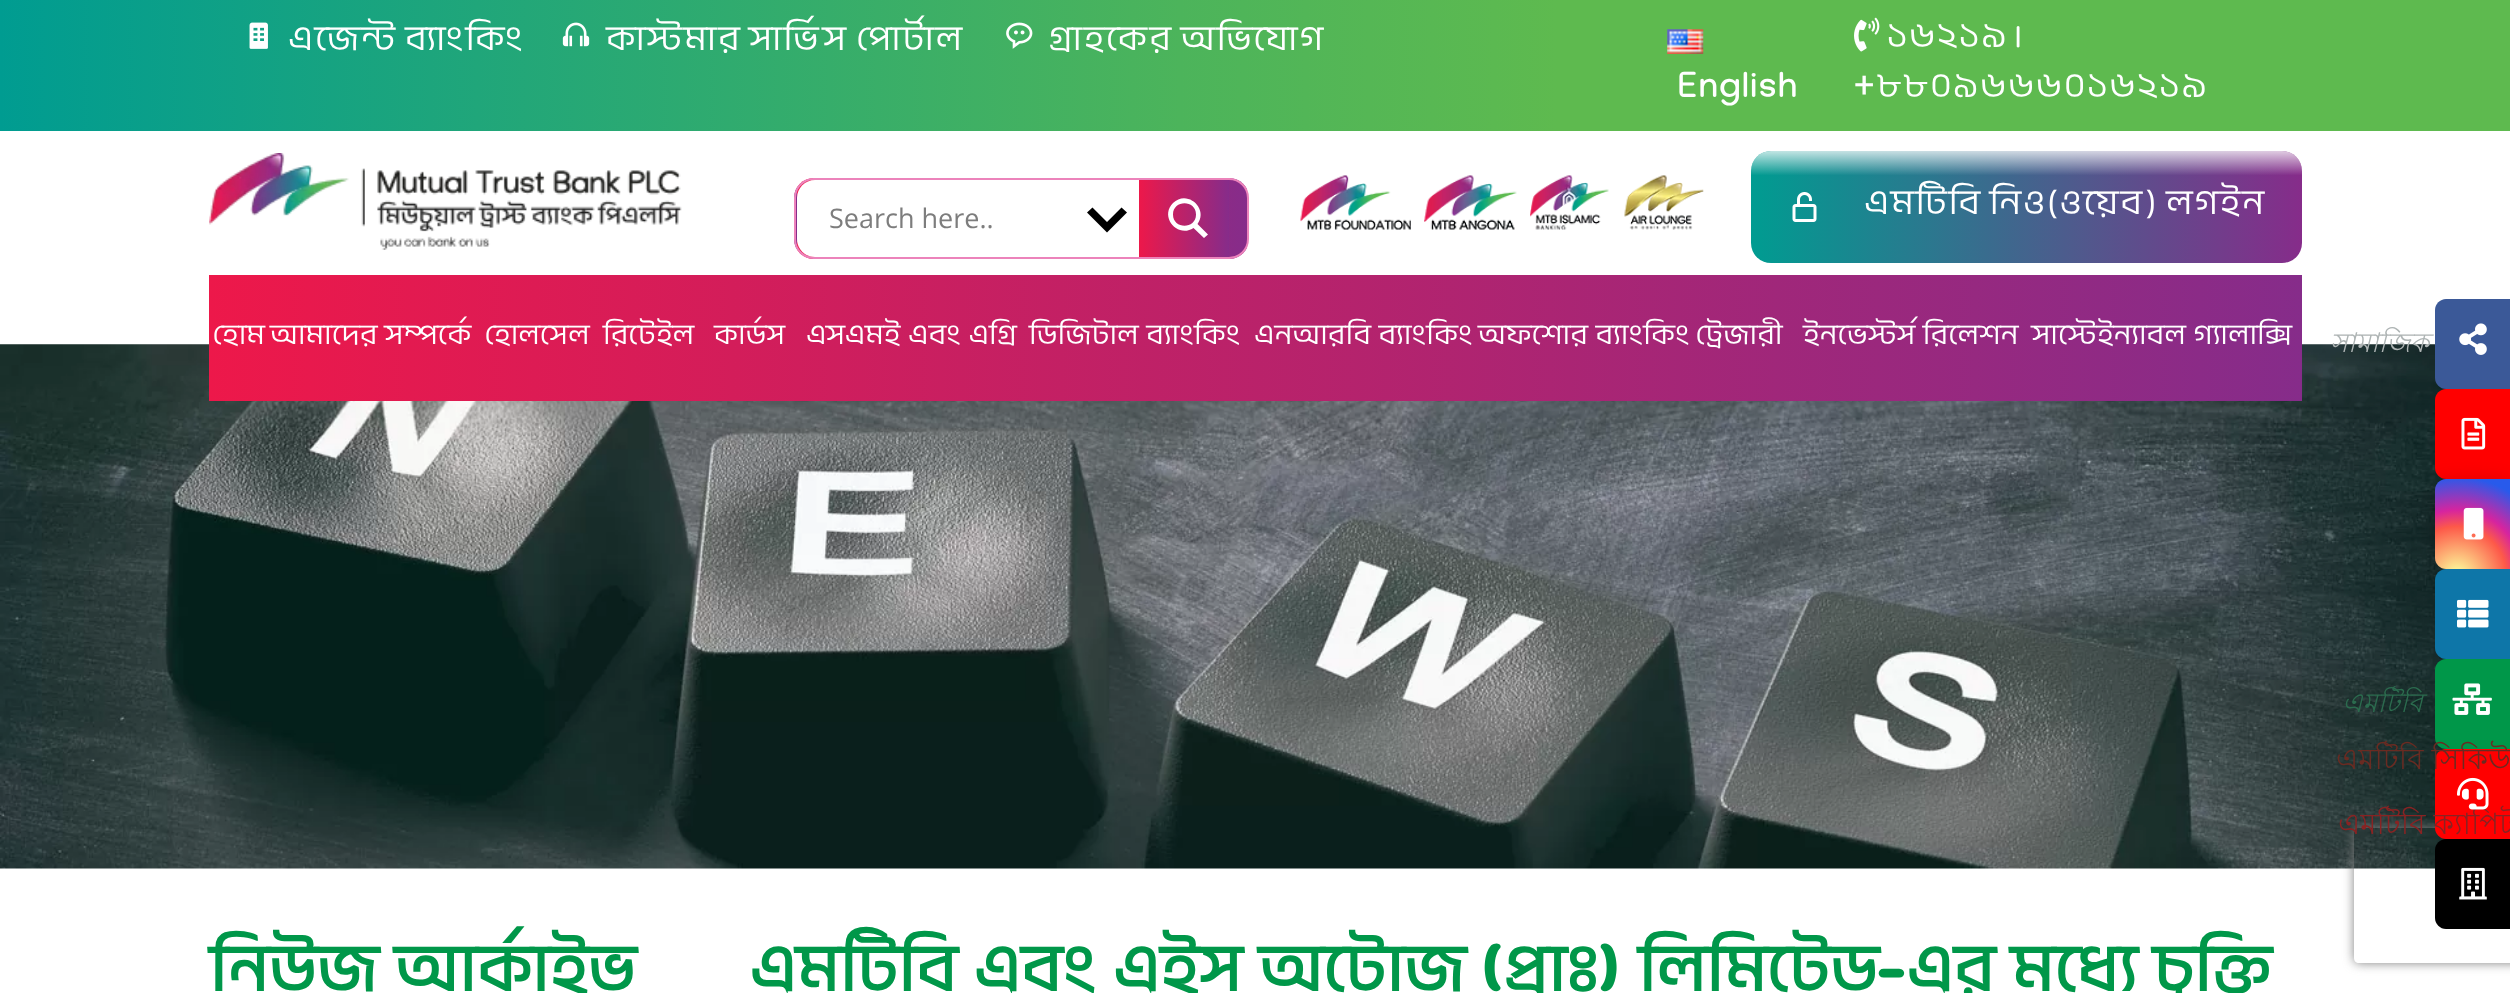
<svg xmlns="http://www.w3.org/2000/svg" width="2510" height="993">
<style>
.a{font:36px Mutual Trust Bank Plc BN;letter-spacing:1.8px;fill:#fff}
.b{font:36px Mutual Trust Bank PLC;letter-spacing:1.8px;fill:#fff}
.c{font:29.25px Mutual Trust Bank PLC;fill:#fff}
.d{font:36px Roboto;letter-spacing:1.8px;fill:#fff}
.e{font:27px Open Sans;fill:#7d7d7d}
.f{font:29.25px Mutual Trust Bank Plc BN;fill:#fff}
.g{font:italic 27px Lohit Bengali;fill:#aeb4b4}
.h{font:italic 27px Lohit Bengali;fill:#2b6b4e}
.i{font:29.25px Lohit Bengali;fill:#6a2b22}
.j{font:29.25px Lohit Bengali;fill:#882323}
.k{font:bold 67.5px Mutual Trust Bank Plc BN;fill:#009749}
.l{font:bold 67.5px Mutual Trust Bank PLC;fill:#009749}
</style>
<defs>
<linearGradient id="g1" gradientUnits="userSpaceOnUse" x1="0" y1="65" x2="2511" y2="65"><stop offset="0" stop-color="#009c91"/><stop offset="0.19" stop-color="#20a67a"/><stop offset="0.47" stop-color="#4cb45b"/><stop offset="0.62" stop-color="#5eba4f"/></linearGradient>
<clipPath id="clip1"><rect x="794" y="178" width="455" height="81" rx="20"/></clipPath>
<linearGradient id="g2" gradientUnits="userSpaceOnUse" x1="347" y1="218" x2="797" y2="218"><stop offset="0" stop-color="#ed184a"/><stop offset="1" stop-color="#862c8a"/></linearGradient>
<linearGradient id="g3" gradientUnits="userSpaceOnUse" x1="797" y1="218" x2="1247" y2="218"><stop offset="0" stop-color="#ed184a"/><stop offset="1" stop-color="#862c8a"/></linearGradient>
<linearGradient id="g4" gradientUnits="userSpaceOnUse" x1="1139" y1="218" x2="1229" y2="218"><stop offset="0" stop-color="#ed184a"/><stop offset="1" stop-color="#862c8a"/></linearGradient>
<linearGradient id="g5" gradientUnits="userSpaceOnUse" x1="2302" y1="207" x2="1751" y2="207"><stop offset="0" stop-color="#862c8a"/><stop offset="1" stop-color="#009c91"/></linearGradient>
<linearGradient id="g6" gradientUnits="userSpaceOnUse" x1="2026" y1="143" x2="2026" y2="263"><stop offset="0" stop-color="#fff"/><stop offset="0.27" stop-color="#fff" stop-opacity="0"/></linearGradient>
<linearGradient id="g7" gradientUnits="userSpaceOnUse" x1="209" y1="338" x2="2302" y2="337"><stop offset="0" stop-color="#ed184a"/><stop offset="1" stop-color="#862c8a"/></linearGradient>
<radialGradient id="g8" gradientUnits="userSpaceOnUse" cx="2457" cy="576" r="110"><stop offset="0" stop-color="#fdf497"/><stop offset="0.05" stop-color="#fdf497"/><stop offset="0.45" stop-color="#fd5949"/><stop offset="0.6" stop-color="#d6249f"/><stop offset="0.9" stop-color="#285aeb"/></radialGradient>
<clipPath id="clip2"><path d="M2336 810h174v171h-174zm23 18h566c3 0 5 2 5 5v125c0 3-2 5-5 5h-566c-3 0-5-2-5-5v-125c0-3 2-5 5-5z" clip-rule="evenodd"/></clipPath>
</defs>
<rect width="100%" height="100%" fill="#fff"/>
<path fill="url(#g1)" d="M0 0h2510v131H0z"/>
<image href="1.png" x="249" y="22" width="19" height="27"/>
<image href="2.png" x="562" y="22" width="28" height="25"/>
<image href="3.png" x="1006" y="22" width="27" height="27"/>
<image href="4.png" x="1667" y="29" width="37" height="25"/>
<image href="5.png" x="1854" y="17" width="26" height="35"/>
<image href="6.png" x="209" y="153" width="473" height="97"/>
<g clip-path="url(#clip1)">
<path fill="url(#g2)" d="M794 187h3v63H794z"/>
<path fill="url(#g3)" d="M797 178h450v81H797z"/>
</g>
<rect fill="none" stroke="#ec83bb" stroke-width="2" x="795" y="179" width="453" height="79" rx="19"/>
<path fill="#fff" d="M815 180h414v77h-414c-10 0-18-8-18-18v-41c0-10 8-18 18-18z"/>
<path fill="#000" d="M1121.5 207.5l5.5 5l-20 20l-20-20l5.5-5l14.5 14.5z"/>
<path fill="url(#g4)" d="M1139 180h90v77H1139z"/>
<path fill="#fff" d="M1208 234.5l-10.5-10.5c11.5-15.5-10.5-35-24.5-21c-14 14 5 35.5 20.5 25l10.5 10zm-35-20c0-15 23-15 23 0c0 15-23 15-23 0z"/>
<image href="7.png" x="1300" y="175" width="111" height="55"/>
<image href="8.png" x="1424" y="175" width="93" height="55"/>
<image href="9.png" x="1530" y="175" width="79" height="55"/>
<image href="10.png" x="1624" y="175" width="80" height="55"/>
<rect fill="url(#g5)" x="1751" y="151" width="551" height="112" rx="20"/>
<image href="11.png" x="1792" y="192" width="25" height="30"/>
<rect fill="url(#g6)" x="1751" y="151" width="551" height="112" rx="20"/>
<image href="19.png" x="0" y="344" width="2446" height="525"/>
<path fill="url(#g7)" d="M209 275h2093v126H209z"/>
<path fill="#3b5998" d="M2446 299h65v90h-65c-6 0-11-5-11-11v-68c0-6 5-11 11-11z"/>
<image href="12.png" x="2459" y="323" width="28" height="32"/>
<path fill="#f00" d="M2446 389h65v90h-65c-6 0-11-5-11-11v-68c0-6 5-11 11-11z"/>
<image href="13.png" x="2461" y="417" width="25" height="33"/>
<rect fill="#00000040" filter="blur(11px)" x="2435" y="486" width="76" height="90" rx="11"/>
<path fill="url(#g8)" d="M2446 479h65v90h-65c-6 0-11-5-11-11v-68c0-6 5-11 11-11z"/>
<image href="14.png" x="2463" y="507" width="21" height="33"/>
<path fill="#0e76a8" d="M2446 569h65v90h-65c-6 0-11-5-11-11v-68c0-6 5-11 11-11z"/>
<image href="15.png" x="2457" y="599" width="32" height="29"/>
<path fill="#009749" d="M2446 659h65v90h-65c-6 0-11-5-11-11v-68c0-6 5-11 11-11z"/>
<image href="16.png" x="2452" y="683" width="40" height="32"/>
<g clip-path="url(#clip2)">
<rect fill="#808080" filter="blur(5.5px)" x="2354" y="828" width="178" height="135" rx="5"/>
</g>
<path fill="#f00" d="M2446 749h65v90h-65c-6 0-11-5-11-11v-68c0-6 5-11 11-11z"/>
<path fill="#000" d="M2446 839h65v90h-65c-6 0-11-5-11-11v-68c0-6 5-11 11-11z"/>
<image href="18.png" x="2459" y="867" width="28" height="33"/>
<text class="a" x="288" y="50" word-spacing="-2">এজেন্ট ব্যাংকিং</text>
<text class="a" x="606" y="50" word-spacing="-2">কাস্টমার সার্ভিস পোর্টাল</text>
<text class="a" x="1048" y="50" word-spacing="-2">গ্রাহকের অভিযোগ</text>
<text class="b" x="1678" y="97">English</text>
<text class="a" x="1887" y="47">১৬২১৯</text>
<text class="c" x="2016" y="47">|</text>
<text class="d" x="1854" y="97">+</text>
<text class="a" x="1877" y="97">৮৮০৯৬৬৬০১৬২১৯</text>
<text class="e" x="829" y="228">Search here..</text>
<text class="a" x="1864" y="214" word-spacing="-2">এমটিবি নিও(ওয়েব) লগইন</text>
<text class="f" x="212" y="344">হোম</text>
<text class="f" x="270" y="344" word-spacing="1">আমাদের সম্পর্কে</text>
<text class="f" x="484" y="344">হোলসেল</text>
<text class="f" x="603" y="344">রিটেইল</text>
<text class="f" x="714" y="344">কার্ডস</text>
<text class="f" x="806" y="344" word-spacing="1">এসএমই এবং এগ্রি</text>
<text class="f" x="1029" y="344" word-spacing="1">ডিজিটাল ব্যাংকিং</text>
<text class="f" x="1254" y="344" word-spacing="1">এনআরবি ব্যাংকিং</text>
<text class="f" x="1478" y="344" word-spacing="1">অফশোর ব্যাংকিং</text>
<text class="f" x="1695" y="344">ট্রেজারী</text>
<text class="f" x="1803" y="344" word-spacing="1">ইনভেস্টর্স রিলেশন</text>
<text class="f" x="2032" y="344" word-spacing="1">সাস্টেইন্যাবল গ্যালাক্সি</text>
<text class="g" x="2330" y="352">সামাজিক</text>
<text class="h" x="2342" y="712">এমটিবি</text>
<text class="i" x="2336" y="769">এমটিবি সিকিউ</text>
<text class="j" x="2338" y="834">এমটিবি ক্যাপিট</text>
<image href="17.png" x="2457" y="777" width="32" height="33"/>
<text class="k" x="209" y="991" word-spacing="2">নিউজ আর্কাইভ</text>
<text class="k" x="749" y="991" word-spacing="2">এমটিবি এবং এইস অটোজ</text>
<text class="l" x="1483" y="991">(</text>
<text class="k" x="1502" y="991">প্রাঃ</text>
<text class="l" x="1599" y="991">)</text>
<text class="k" x="1638" y="991">লিমিটেড</text>
<text class="l" x="1877" y="991">-</text>
<text class="k" x="1906" y="991" word-spacing="2">এর মধ্যে চুক্তি</text>
</svg>
